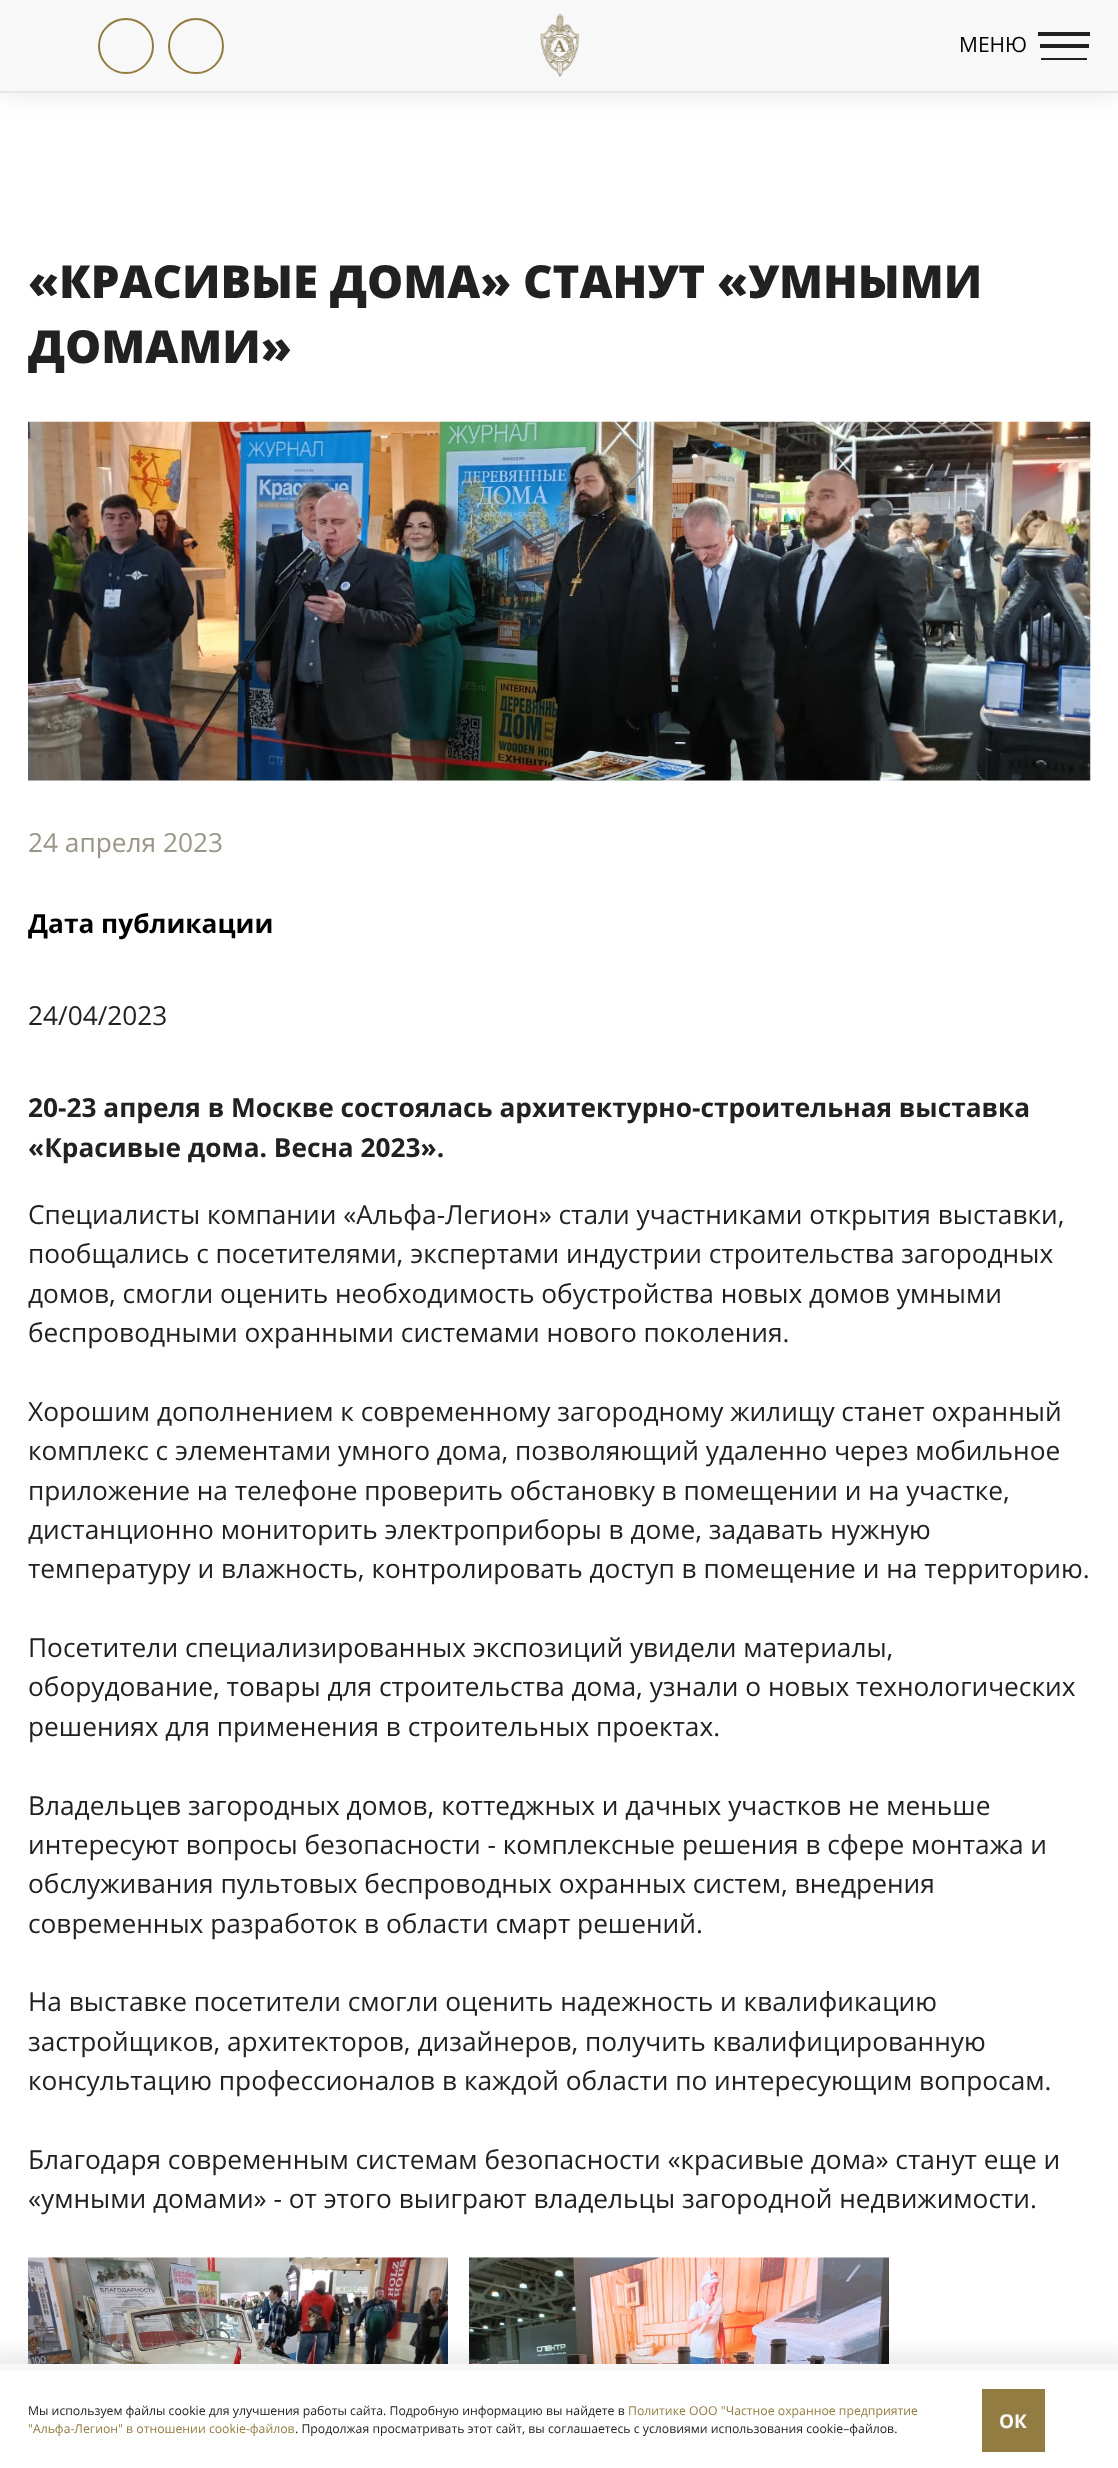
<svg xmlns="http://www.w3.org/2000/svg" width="1118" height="2468">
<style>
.a{font:21px Open Sans;fill:#000}
.b{font:800 45.5px Open Sans;fill:#212121}
.c{font:26.25px Open Sans;fill:#9b9587}
.d{font:bold 26.25px Open Sans;fill:#000}
.e{font:26.25px Open Sans;fill:#212121}
.f{font:bold 26.25px Open Sans;fill:#212121}
.g{font:12.25px Open Sans;fill:#212121}
.h{font:12.25px Open Sans;fill:#937c41}
.i{font:bold 19px Open Sans;fill:#f8f8f8}
</style>
<rect width="100%" height="100%" fill="#fff"/>
<path fill="#00000014" filter="blur(11.5px)" d="M0 5h1118v91H0z"/>
<path fill="#e6e6e6" d="M0 91h1118v2H0z"/>
<path fill="#f8f8f8" d="M0 0h1118v91H0z"/>
<circle fill="none" stroke="#937c41" stroke-width="2" cx="126" cy="46" r="27"/>
<circle fill="none" stroke="#937c41" stroke-width="2" cx="196" cy="46" r="27"/>
<image href="1.png" x="540" y="14" width="39" height="63"/>
<path fill="#212121" d="M1038 32h52v4H1038z"/>
<path fill="#212121" d="M1040 44h49v4H1040z"/>
<path fill="#212121" d="M1041 58h46v2H1041z"/>
<image href="2.png" x="28" y="421" width="1063" height="360"/>
<image href="3.png" x="28" y="2257" width="420" height="107"/>
<image href="4.png" x="469" y="2257" width="420" height="107"/>
<path fill="#00000014" filter="blur(9px)" d="M-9 2352h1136v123H-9z"/>
<path fill="#f8f8f8" d="M0 2364h1118v7H0z"/>
<path fill="#fff" d="M0 2371h1118v97H0z"/>
<path fill="#937c41" d="M982 2389h63v63H982z"/>
<text class="a" x="959" y="52">МЕНЮ</text>
<text class="b" x="28" y="298">«КРАСИВЫЕ ДОМА» СТАНУТ «УМНЫМИ</text>
<text class="b" x="28" y="363">ДОМАМИ»</text>
<text class="c" x="28" y="852">24 апреля 2023</text>
<text class="d" x="28" y="933">Дата публикации</text>
<text class="e" x="28" y="1025">24/04/2023</text>
<text class="f" x="28" y="1117">20-23 апреля в Москве состоялась архитектурно-строительная выставка</text>
<text class="f" x="28" y="1157">«Красивые дома. Весна 2023».</text>
<text class="e" x="28" y="1224">Специалисты компании «Альфа-Легион» стали участниками открытия выставки,</text>
<text class="e" x="28" y="1263">пообщались с посетителями, экспертами индустрии строительства загородных</text>
<text class="e" x="28" y="1303">домов, смогли оценить необходимость обустройства новых домов умными</text>
<text class="e" x="28" y="1342">беспроводными охранными системами нового поколения.</text>
<text class="e" x="28" y="1421">Хорошим дополнением к современному загородному жилищу станет охранный</text>
<text class="e" x="28" y="1460">комплекс с элементами умного дома, позволяющий удаленно через мобильное</text>
<text class="e" x="28" y="1500">приложение на телефоне проверить обстановку в помещении и на участке,</text>
<text class="e" x="28" y="1539">дистанционно мониторить электроприборы в доме, задавать нужную</text>
<text class="e" x="28" y="1578">температуру и влажность, контролировать доступ в помещение и на территорию.</text>
<text class="e" x="28" y="1657">Посетители специализированных экспозиций увидели материалы,</text>
<text class="e" x="28" y="1696">оборудование, товары для строительства дома, узнали о новых технологических</text>
<text class="e" x="28" y="1736">решениях для применения в строительных проектах.</text>
<text class="e" x="28" y="1815">Владельцев загородных домов, коттеджных и дачных участков не меньше</text>
<text class="e" x="28" y="1854">интересуют вопросы безопасности - комплексные решения в сфере монтажа и</text>
<text class="e" x="28" y="1893">обслуживания пультовых беспроводных охранных систем, внедрения</text>
<text class="e" x="28" y="1933">современных разработок в области смарт решений.</text>
<text class="e" x="28" y="2011">На выставке посетители смогли оценить надежность и квалификацию</text>
<text class="e" x="28" y="2051">застройщиков, архитекторов, дизайнеров, получить квалифицированную</text>
<text class="e" x="28" y="2090">консультацию профессионалов в каждой области по интересующим вопросам.</text>
<text class="e" x="28" y="2169">Благодаря современным системам безопасности «красивые дома» станут еще и</text>
<text class="e" x="28" y="2208">«умными домами» - от этого выиграют владельцы загородной недвижимости.</text>
<text class="g" x="28" y="2415">Мы используем файлы cookie для улучшения работы сайта. Подробную информацию вы найдете в</text>
<text class="h" x="628" y="2415">Политике ООО "Частное охранное предприятие</text>
<text class="h" x="28" y="2433">"Альфа-Легион" в отношении cookie-файлов</text>
<text class="g" x="295" y="2433">. Продолжая просматривать этот сайт, вы соглашаетесь с условиями использования cookie–файлов.</text>
<text class="i" x="999" y="2428">ОК</text>
</svg>
